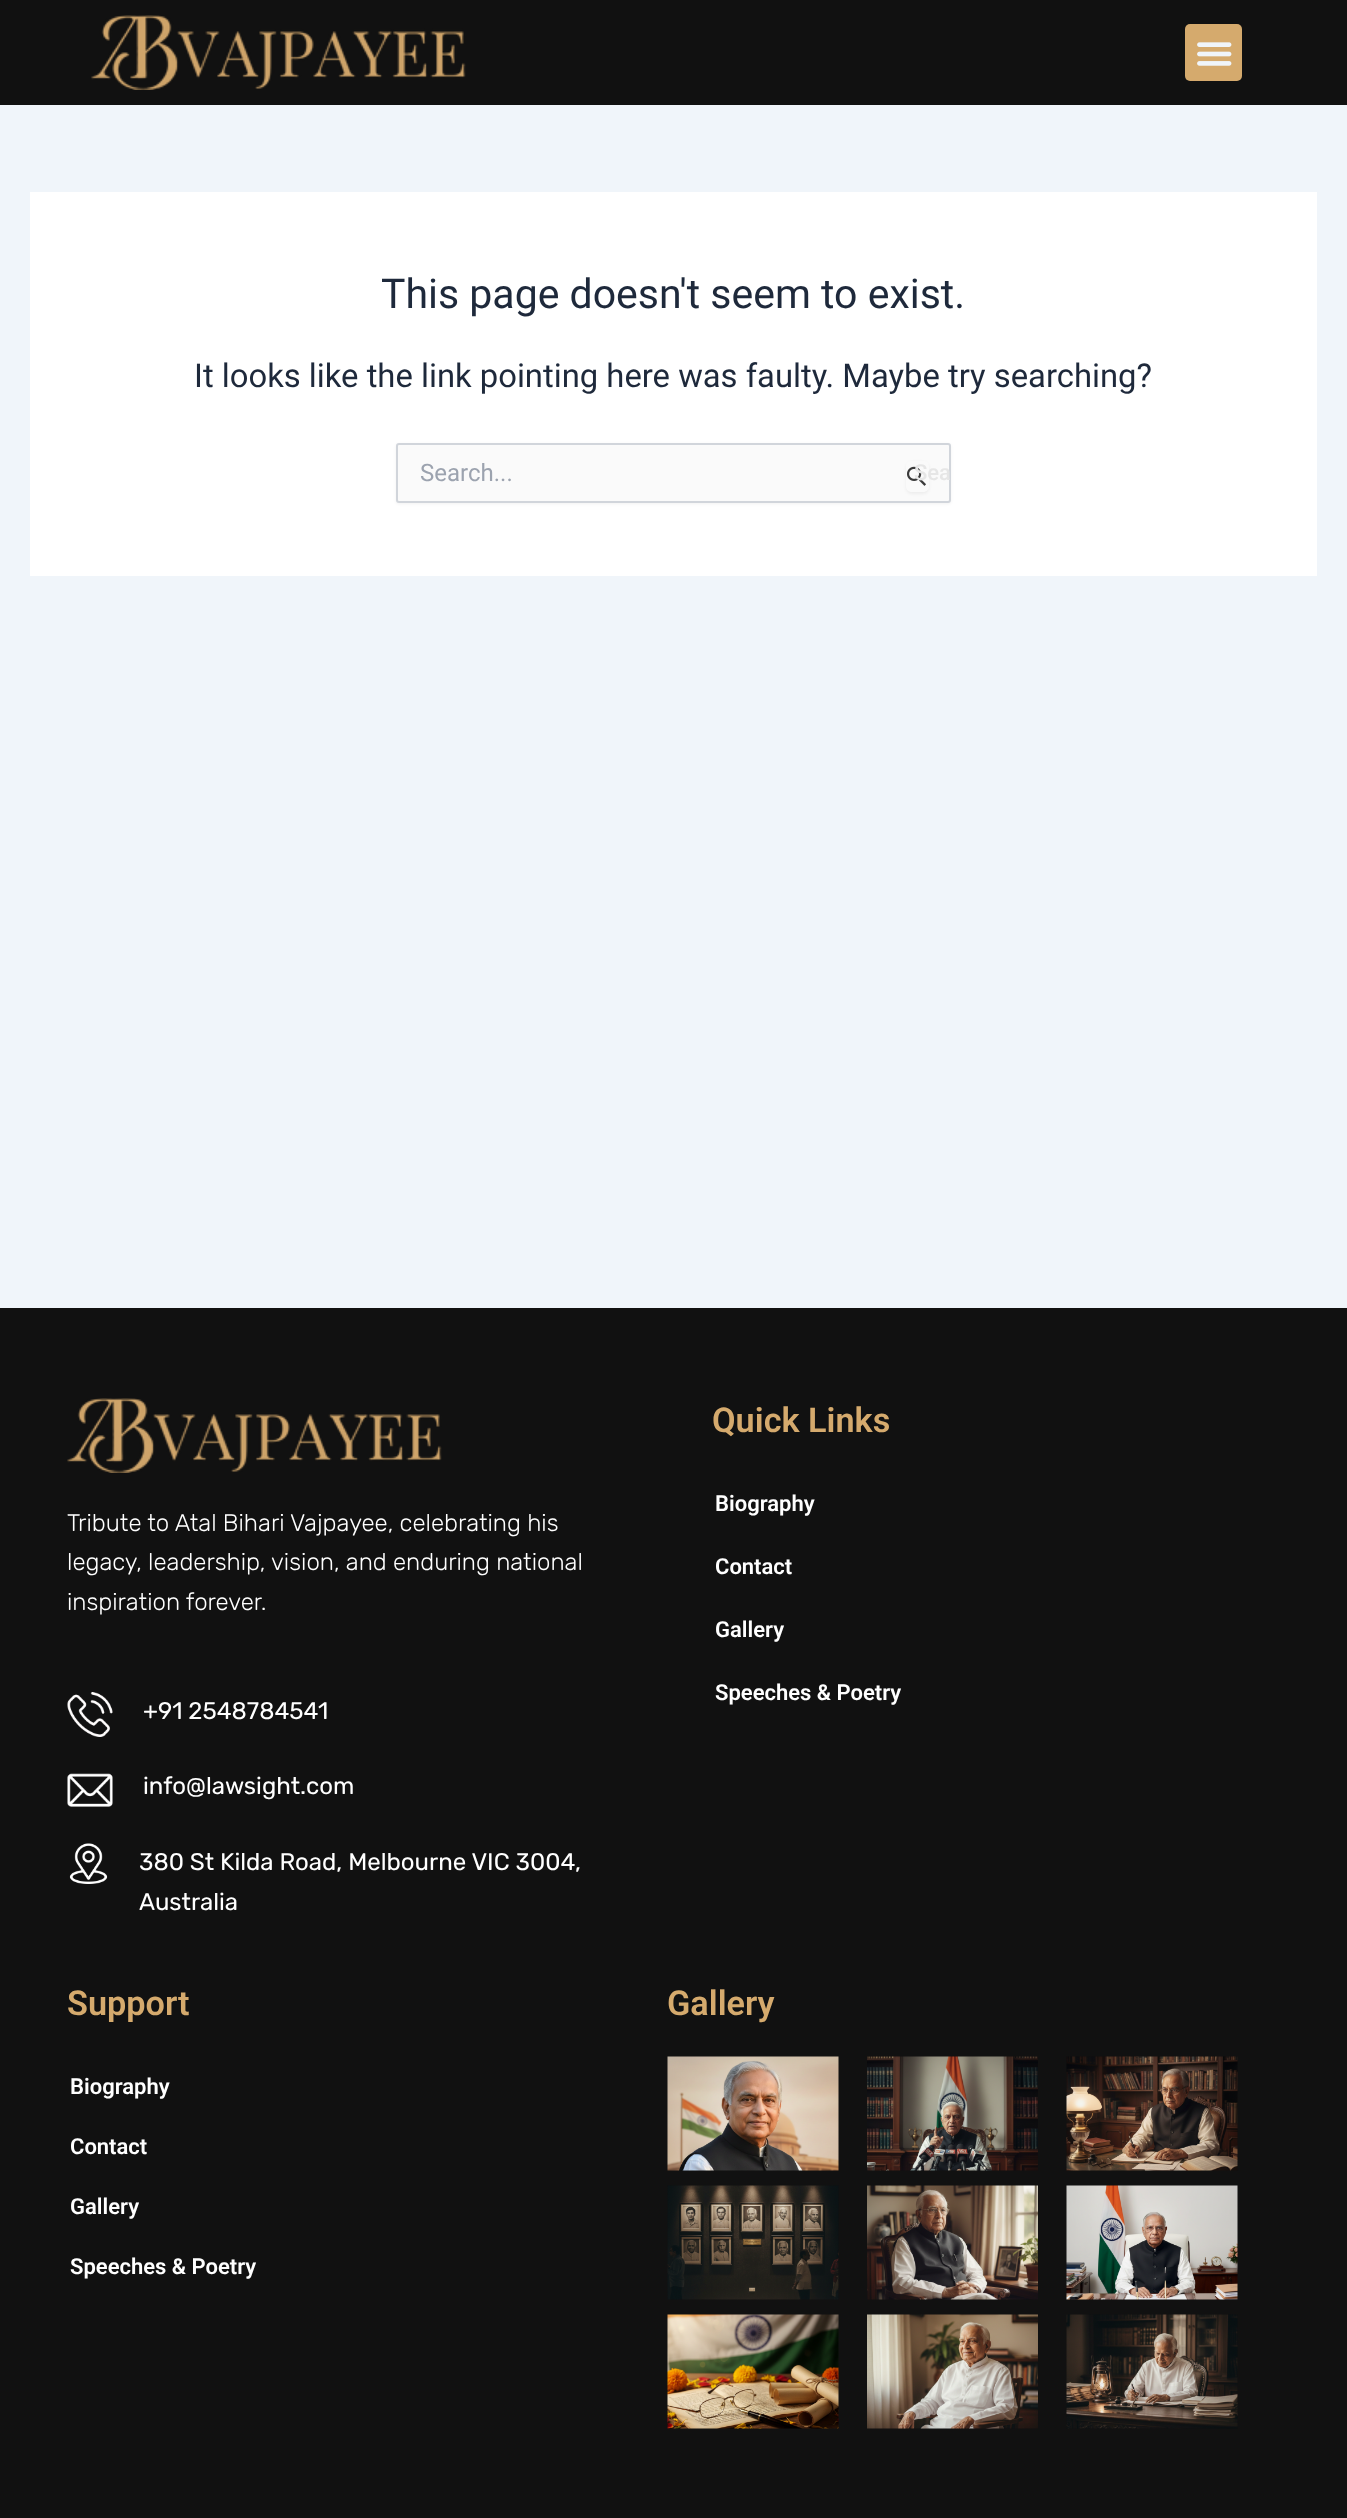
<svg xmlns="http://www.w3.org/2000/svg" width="1347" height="2518">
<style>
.a{font:41px Roboto;fill:#1e293b}
.b{font:32.8px Roboto;fill:#1e293b}
.c{font:24px Roboto;fill:#9ca3af}
.d{font:500 22px Roboto;fill:#e6e6e6}
.e{font:300 24px Rubik;fill:#fff}
.f{font:24px Rubik;fill:#fff}
.g{font:600 34.25px Roboto;fill:#d5aa6d}
.h{font:600 22px Roboto;fill:#fff}
</style>
<defs>
<clipPath id="clip1"><path d="M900 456h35v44h-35zm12 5h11c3.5 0 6 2.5 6 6v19c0 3.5-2.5 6-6 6h-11c-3.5 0-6-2.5-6-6v-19c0-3.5 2.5-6 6-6z" clip-rule="evenodd"/></clipPath>
</defs>
<rect width="100%" height="100%" fill="#f0f5fa"/>
<path fill="#111" d="M0 0h1347v105H0z"/>
<image href="1.png" x="91" y="15" width="375" height="75"/>
<rect fill="#d5aa6d" x="1185" y="24" width="57" height="57" rx="5"/>
<image href="2.png" x="1197" y="42" width="35" height="24"/>
<path fill="#fff" d="M30 192h1287v384H30z"/>
<rect fill="#0000000d" filter="blur(1.5px)" x="396" y="444" width="555" height="60" rx="3"/>
<rect fill="#fafafa" stroke="#d1d5db" stroke-width="2" x="397" y="444" width="553" height="58" rx="2"/>
<g clip-path="url(#clip1)">
<rect fill="#0000000d" filter="blur(1.5px)" x="906" y="462" width="23" height="32" rx="6"/>
</g>
<image href="3.png" x="907" y="466" width="19" height="20"/>
<path fill="#111" d="M0 1308h1347v1210H0z"/>
<image href="1.png" x="67" y="1398" width="375" height="75"/>
<image href="4.png" x="67" y="1692" width="46" height="45"/>
<image href="5.png" x="67" y="1773" width="46" height="34"/>
<image href="6.png" x="69" y="1843" width="39" height="41"/>
<image href="7.png" x="667" y="2056" width="172" height="115"/>
<image href="8.png" x="867" y="2056" width="171" height="115"/>
<image href="9.png" x="1066" y="2056" width="172" height="115"/>
<image href="10.png" x="667" y="2185" width="172" height="115"/>
<image href="11.png" x="867" y="2185" width="171" height="115"/>
<image href="12.png" x="1066" y="2185" width="172" height="115"/>
<image href="13.png" x="667" y="2314" width="172" height="115"/>
<image href="14.png" x="867" y="2314" width="171" height="115"/>
<image href="15.png" x="1066" y="2314" width="172" height="115"/>
<text class="a" x="381" y="308">This page doesn't seem to exist.</text>
<text class="b" x="194" y="387">It looks like the link pointing here was faulty. Maybe try searching?</text>
<text class="c" x="420" y="481">Search...</text>
<text class="d" x="914" y="480">Sea</text>
<text class="e" x="67" y="1531">Tribute to Atal Bihari Vajpayee, celebrating his</text>
<text class="e" x="67" y="1570">legacy, leadership, vision, and enduring national</text>
<text class="e" x="67" y="1610">inspiration forever.</text>
<text class="f" x="143" y="1719">+91 2548784541</text>
<text class="f" x="143" y="1794">info@lawsight.com</text>
<text class="f" x="139" y="1870">380 St Kilda Road, Melbourne VIC 3004,</text>
<text class="f" x="139" y="1910">Australia</text>
<text class="g" x="712" y="1432">Quick Links</text>
<text class="h" x="715" y="1511">Biography</text>
<text class="h" x="715" y="1574">Contact</text>
<text class="h" x="715" y="1637">Gallery</text>
<text class="h" x="715" y="1700">Speeches &amp; Poetry</text>
<text class="g" x="67" y="2015">Support</text>
<text class="h" x="70" y="2094">Biography</text>
<text class="h" x="70" y="2154">Contact</text>
<text class="h" x="70" y="2214">Gallery</text>
<text class="h" x="70" y="2274">Speeches &amp; Poetry</text>
<text class="g" x="667" y="2015">Gallery</text>
</svg>
